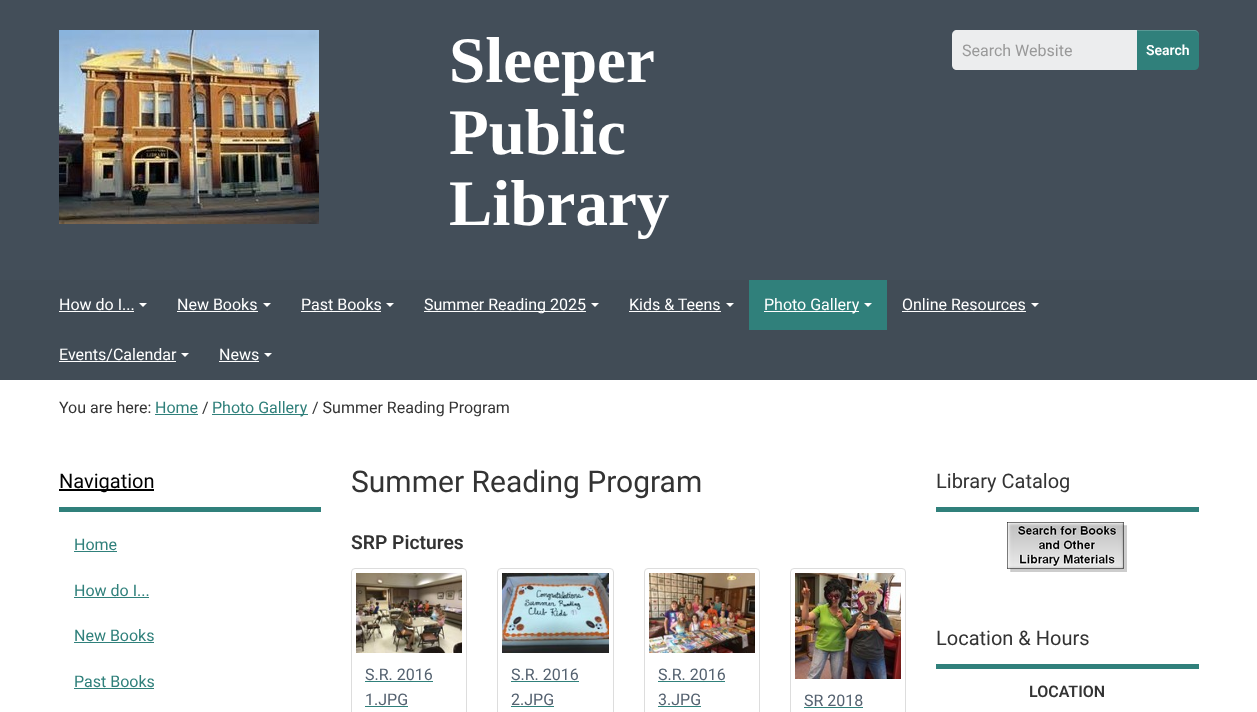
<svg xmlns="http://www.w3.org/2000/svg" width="1257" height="712">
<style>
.a{font:bold 65px Liberation Serif;fill:#fff}
.b{font:16px Roboto;fill:#999}
.c{font:600 14px Roboto;fill:#fff}
.d{font:16px Roboto;fill:#fff}
.e{font:16px Roboto;fill:#333}
.f{font:16px Roboto;fill:#30807b}
.g{font:20px Roboto;fill:#000}
.h{font:30px Roboto;fill:#333}
.i{font:600 19.25px Roboto;fill:#333}
.j{font:16px Roboto;fill:#556270}
.k{font:20px Roboto;fill:#333}
.l{font:600 16px Roboto;fill:#333}
</style>
<rect width="100%" height="100%" fill="#fff"/>
<path fill="#434e59" d="M0 0h1257v280H0z"/>
<image href="1.png" x="59" y="30" width="260" height="194"/>
<path fill="#ecedee" d="M957 30h180v40h-180c-3 0-5-2-5-5v-30c0-3 2-5 5-5z"/>
<path fill="#30807b" d="M1137 30h57c3 0 5 2 5 5v30c0 3-2 5-5 5h-57z"/>
<path fill="#ffffff33" d="M1137 31h57c3 0 5 2 5 5v-1c0-3-2-5-5-5h-57z"/>
<path fill="#414c56" d="M0 280h1257v100H0z"/>
<path fill="#fff" d="M59 311h75v1H59z"/>
<path fill="#fff" d="M139 303h8l-4 4z"/>
<path fill="#fff" d="M177 311h81v1H177z"/>
<path fill="#fff" d="M263 303h8l-4 4z"/>
<path fill="#fff" d="M301 311h80v1H301z"/>
<path fill="#fff" d="M386 303h8l-4 4z"/>
<path fill="#fff" d="M424 311h162v1H424z"/>
<path fill="#fff" d="M591 303h8l-4 4z"/>
<path fill="#fff" d="M629 311h92v1H629z"/>
<path fill="#fff" d="M726 303h8l-4 4z"/>
<path fill="#30807b" d="M749 280h138v50H749z"/>
<path fill="#fff" d="M764 311h95v1H764z"/>
<path fill="#fff" d="M864 303h8l-4 4z"/>
<path fill="#fff" d="M902 311h124v1H902z"/>
<path fill="#fff" d="M1031 303h8l-4 4z"/>
<path fill="#fff" d="M59 361h117v1H59z"/>
<path fill="#fff" d="M181 353h8l-4 4z"/>
<path fill="#fff" d="M219 361h40v1H219z"/>
<path fill="#fff" d="M264 353h8l-4 4z"/>
<path fill="#30807b" d="M155 414h43v1H155z"/>
<path fill="#30807b" d="M212 414h96v1H212z"/>
<path fill="#30807b" d="M59 507h262v5H59z"/>
<path fill="#000" d="M59 489h95v2H59z"/>
<path fill="#30807b" d="M74 551h43v1H74z"/>
<path fill="#30807b" d="M74 597h75v1H74z"/>
<path fill="#30807b" d="M74 642h80v1H74z"/>
<path fill="#30807b" d="M74 688h80v1H74z"/>
<rect fill="none" stroke="#ddd" x="351.5" y="568.5" width="115" height="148" rx="3.5"/>
<image href="2.png" x="356" y="573" width="106" height="80"/>
<path fill="#30807b" d="M365 681h68v1H365z"/>
<path fill="#30807b" d="M365 706h43v1H365z"/>
<rect fill="none" stroke="#ddd" x="497.5" y="568.5" width="116" height="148" rx="3.5"/>
<image href="3.png" x="502" y="573" width="107" height="80"/>
<path fill="#30807b" d="M511 681h68v1H511z"/>
<path fill="#30807b" d="M511 706h43v1H511z"/>
<rect fill="none" stroke="#ddd" x="644.5" y="568.5" width="115" height="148" rx="3.5"/>
<image href="4.png" x="649" y="573" width="106" height="80"/>
<path fill="#30807b" d="M658 681h67v1H658z"/>
<path fill="#30807b" d="M658 706h43v1H658z"/>
<rect fill="none" stroke="#ddd" x="790.5" y="568.5" width="115" height="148" rx="3.5"/>
<image href="5.png" x="795" y="573" width="106" height="106"/>
<path fill="#30807b" d="M804 707h59v1H804z"/>
<path fill="#30807b" d="M936 507h263v5H936z"/>
<image href="6.png" x="1007" y="522" width="120" height="50"/>
<path fill="#30807b" d="M936 664h263v5H936z"/>
<text class="a" x="449" y="82">Sleeper</text>
<text class="a" x="449" y="154">Public</text>
<text class="a" x="449" y="225">Library</text>
<text class="b" x="962" y="56">Search Website</text>
<text class="c" x="1146" y="55">Search</text>
<text class="d" x="59" y="310">How do I...</text>
<text class="d" x="177" y="310">New Books</text>
<text class="d" x="301" y="310">Past Books</text>
<text class="d" x="424" y="310">Summer Reading 2025</text>
<text class="d" x="629" y="310">Kids &amp; Teens</text>
<text class="d" x="764" y="310">Photo Gallery</text>
<text class="d" x="902" y="310">Online Resources</text>
<text class="d" x="59" y="360">Events/Calendar</text>
<text class="d" x="219" y="360">News</text>
<text class="e" x="59" y="413">You are here:</text>
<text class="f" x="155" y="413">Home</text>
<text class="e" x="202" y="413">/</text>
<text class="f" x="212" y="413">Photo Gallery</text>
<text class="e" x="312" y="413">/ Summer Reading Program</text>
<text class="g" x="59" y="488">Navigation</text>
<text class="f" x="74" y="550">Home</text>
<text class="f" x="74" y="596">How do I...</text>
<text class="f" x="74" y="641">New Books</text>
<text class="f" x="74" y="687">Past Books</text>
<text class="h" x="351" y="492">Summer Reading Program</text>
<text class="i" x="351" y="549">SRP Pictures</text>
<text class="j" x="365" y="680">S.R. 2016</text>
<text class="j" x="365" y="705">1.JPG</text>
<text class="j" x="511" y="680">S.R. 2016</text>
<text class="j" x="511" y="705">2.JPG</text>
<text class="j" x="658" y="680">S.R. 2016</text>
<text class="j" x="658" y="705">3.JPG</text>
<text class="j" x="804" y="706">SR 2018</text>
<text class="k" x="936" y="488">Library Catalog</text>
<text class="k" x="936" y="645">Location &amp; Hours</text>
<text class="l" x="1029" y="697">LOCATION</text>
</svg>
